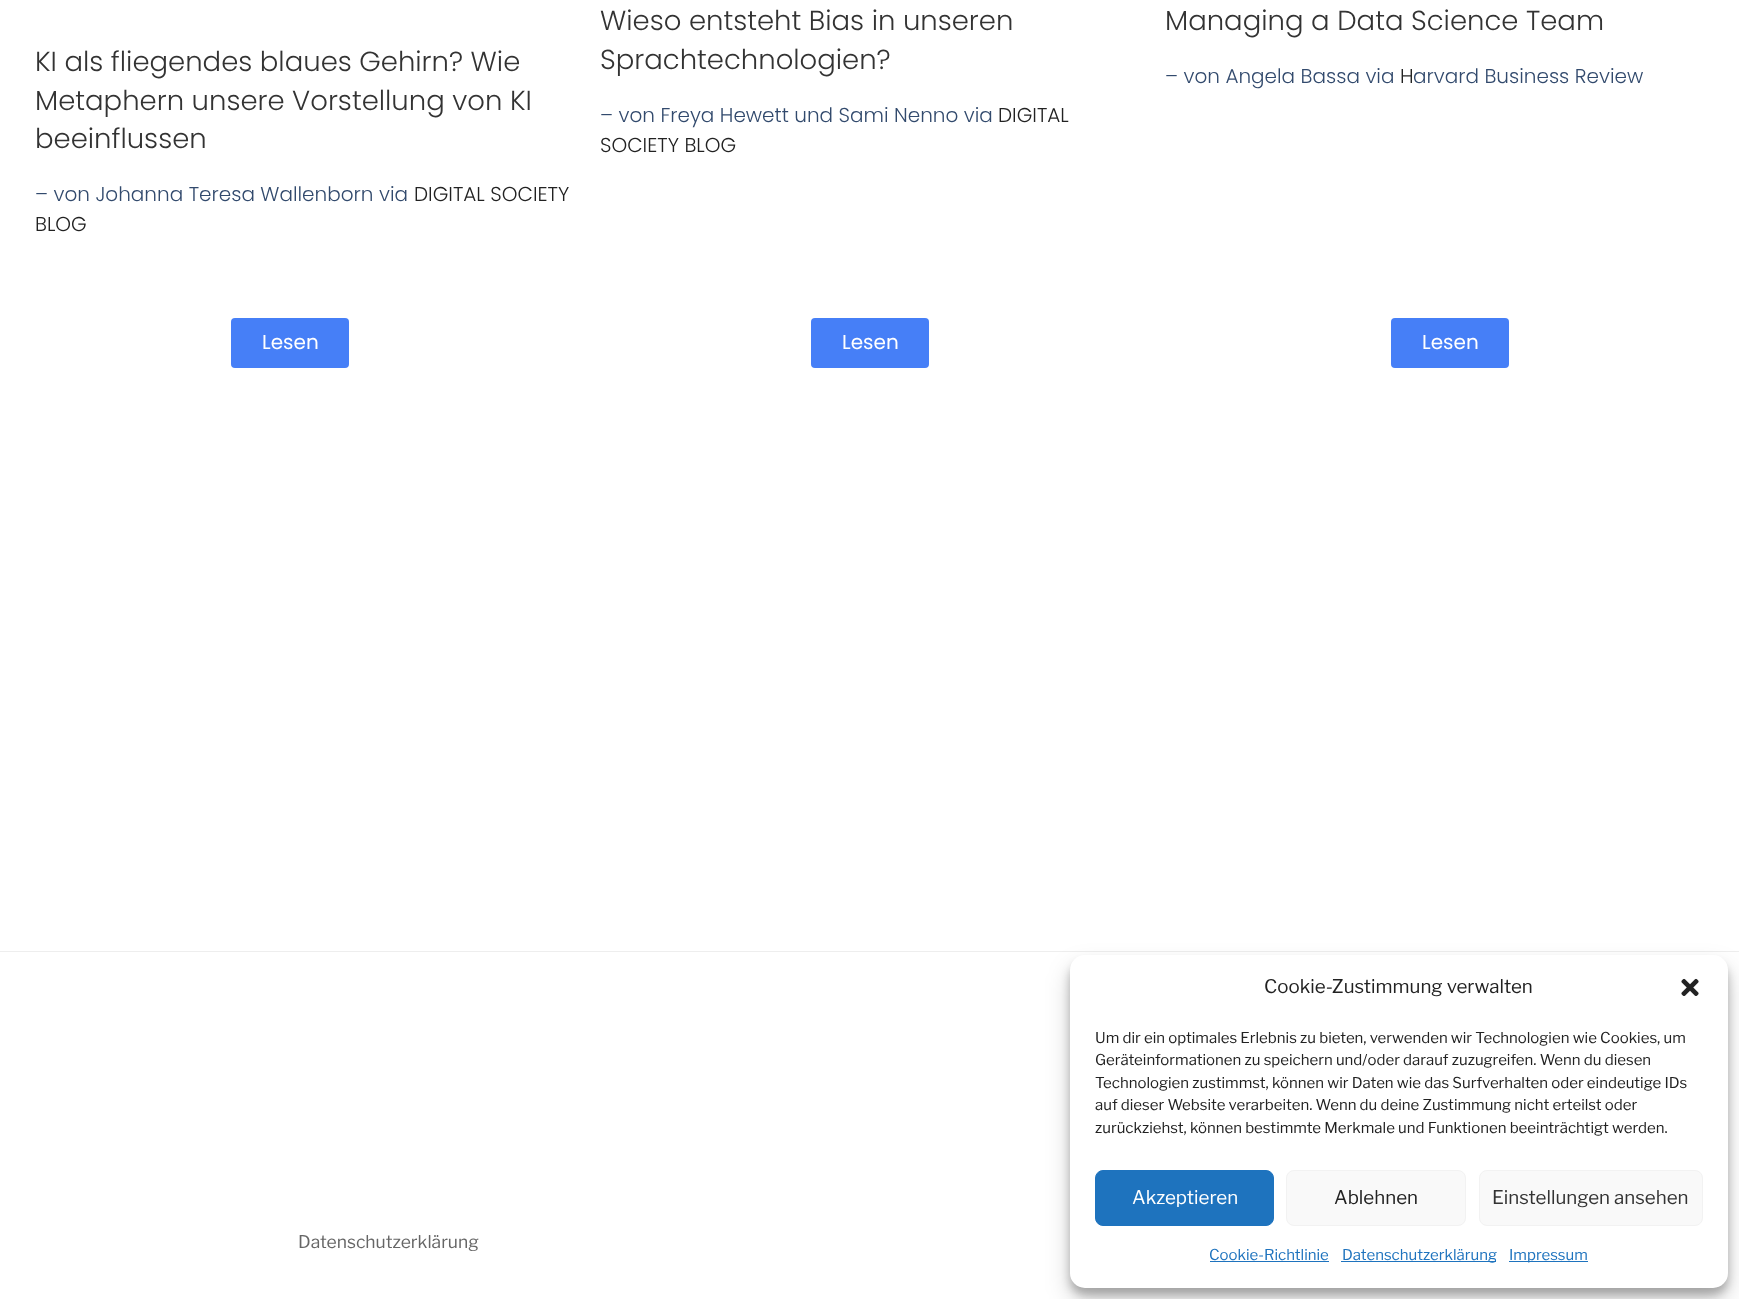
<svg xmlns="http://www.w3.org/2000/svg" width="1739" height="1299">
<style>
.a{font:300 27.5px Poppins;fill:#333}
.b{font:300 20px Poppins;fill:#324a6d}
.c{font:300 20px Poppins;fill:#222}
.d{font:20px Poppins;fill:#fff}
.e{font:100 17.5px Libre Franklin;fill:#666}
.f{font:100 18.75px Libre Franklin;fill:#222}
.g{font:100 15px Libre Franklin;fill:#222}
.h{font:100 18.75px Libre Franklin;fill:#fff}
.i{font:100 18.75px Libre Franklin;fill:#333}
.j{font:100 15px Libre Franklin;fill:#1e73be}
</style>
<rect width="100%" height="100%" fill="#fff"/>
<rect fill="#467ff7" x="231" y="318" width="118" height="50" rx="4"/>
<rect fill="#467ff7" x="811" y="318" width="118" height="50" rx="4"/>
<rect fill="#467ff7" x="1391" y="318" width="118" height="50" rx="4"/>
<path fill="#eee" d="M0 951h1739v1H0z"/>
<rect fill="#0000003b" filter="blur(4px)" x="1070" y="963" width="658" height="332" rx="15"/>
<rect fill="#00000030" filter="blur(12.5px)" x="1070" y="968" width="658" height="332" rx="15"/>
<rect fill="#fff" x="1070" y="955" width="658" height="333" rx="15"/>
<image href="1.png" x="1681" y="978" width="18" height="18"/>
<rect fill="#1e73be" stroke="#1e73be" x="1095.5" y="1170.5" width="178" height="55" rx="7.5"/>
<rect fill="#f9f9f9" stroke="#f2f2f2" x="1286.5" y="1170.5" width="179" height="55" rx="7.5"/>
<rect fill="#f9f9f9" stroke="#f2f2f2" x="1479.5" y="1170.5" width="223" height="55" rx="7.5"/>
<path fill="#1e73be" d="M1210 1261h119v1H1210z"/>
<path fill="#1e73be" d="M1341 1261h155v1H1341z"/>
<path fill="#1e73be" d="M1509 1261h79v1H1509z"/>
<text class="a" x="35" y="71">KI als fliegendes blaues Gehirn? Wie</text>
<text class="a" x="35" y="110">Metaphern unsere Vorstellung von KI</text>
<text class="a" x="35" y="148">beeinflussen</text>
<text class="b" x="35" y="201">– von Johanna Teresa Wallenborn via</text>
<text class="c" x="414" y="201">DIGITAL SOCIETY</text>
<text class="c" x="35" y="231">BLOG</text>
<text class="a" x="600" y="30">Wieso entsteht Bias in unseren</text>
<text class="a" x="600" y="69">Sprachtechnologien?</text>
<text class="b" x="600" y="122">– von Freya Hewett und Sami Nenno via</text>
<text class="c" x="998" y="122">DIGITAL</text>
<text class="c" x="600" y="152">SOCIETY BLOG</text>
<text class="a" x="1165" y="30">Managing a Data Science Team</text>
<text class="b" x="1165" y="83">– von Angela Bassa via</text>
<text class="c" x="1400" y="83">H</text>
<text class="b" x="1413" y="83">arvard Business Review</text>
<text class="d" x="262" y="349">Lesen</text>
<text class="d" x="842" y="349">Lesen</text>
<text class="d" x="1422" y="349">Lesen</text>
<text class="e" x="298" y="1248">Datenschutzerklärung</text>
<text class="f" x="1264" y="993">Cookie-Zustimmung verwalten</text>
<text class="g" x="1095" y="1043">Um dir ein optimales Erlebnis zu bieten, verwenden wir Technologien wie Cookies, um</text>
<text class="g" x="1095" y="1065">Geräteinformationen zu speichern und/oder darauf zuzugreifen. Wenn du diesen</text>
<text class="g" x="1095" y="1088">Technologien zustimmst, können wir Daten wie das Surfverhalten oder eindeutige IDs</text>
<text class="g" x="1095" y="1110">auf dieser Website verarbeiten. Wenn du deine Zustimmung nicht erteilst oder</text>
<text class="g" x="1095" y="1133">zurückziehst, können bestimmte Merkmale und Funktionen beeinträchtigt werden.</text>
<text class="h" x="1132" y="1204">Akzeptieren</text>
<text class="f" x="1334" y="1204">Ablehnen</text>
<text class="i" x="1492" y="1204">Einstellungen ansehen</text>
<text class="j" x="1209" y="1260">Cookie-Richtlinie</text>
<text class="j" x="1342" y="1260">Datenschutzerklärung</text>
<text class="j" x="1509" y="1260">Impressum</text>
</svg>
